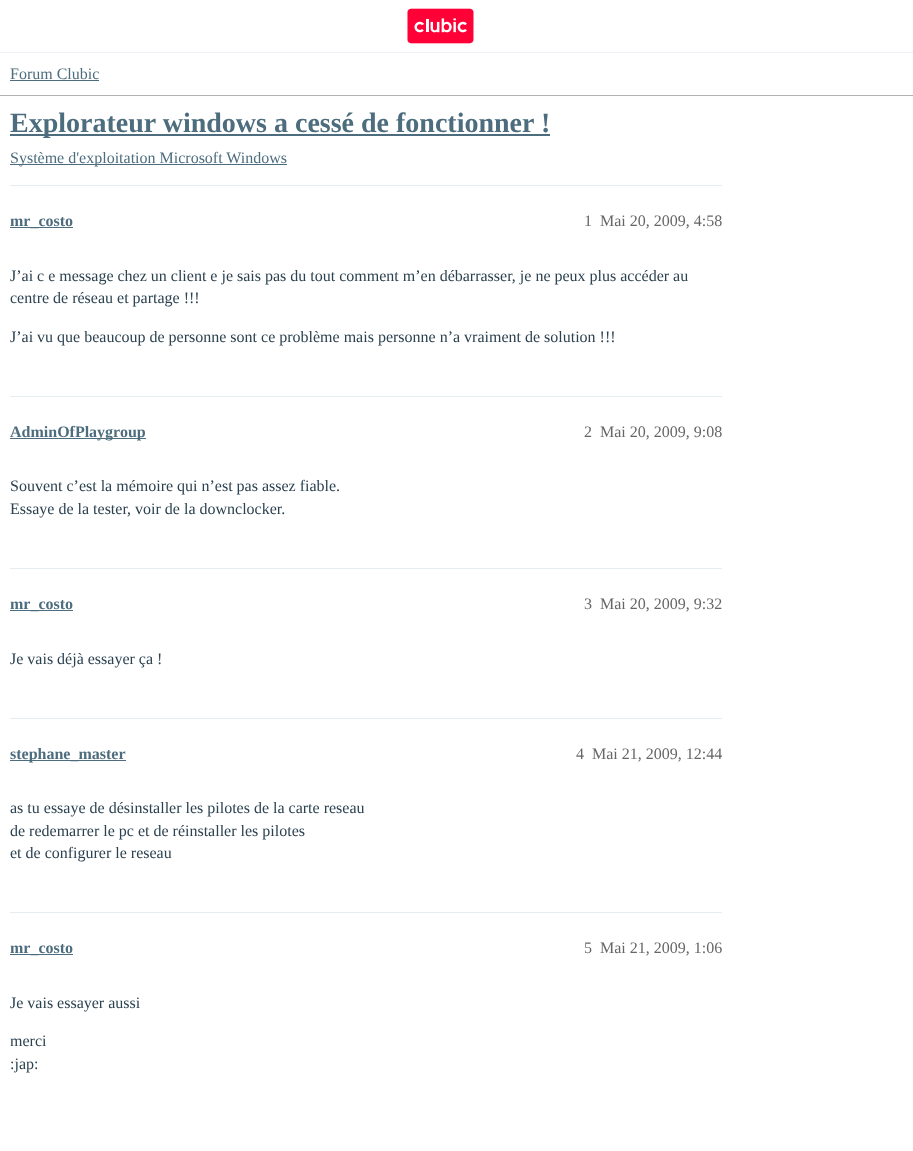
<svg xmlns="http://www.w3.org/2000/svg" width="913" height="1151">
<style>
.a{font:16px Liberation Serif;fill:#4d6d7e}
.b{font:bold 28px Liberation Serif;fill:#4d6d7e}
.c{font:bold 16px Liberation Serif;fill:#4d6d7e}
.d{font:16px Liberation Serif;fill:#666}
.e{font:16px Liberation Serif;fill:#2c4250}
</style>
<rect width="100%" height="100%" fill="#fff"/>
<path fill="#edf0f4" d="M0 52h913v1H0z"/>
<image href="1.png" x="407" y="8" width="67" height="36"/>
<path fill="#aeb2b5" d="M0 95h913v1H0z"/>
<path fill="#4d6d7e" d="M10 80h89v1H10z"/>
<path fill="#4d6d7e" d="M10 134h540v2H10z"/>
<path fill="#4d6d7e" d="M10 164h277v1H10z"/>
<path fill="#e6edf1" d="M10 185h712v1H10z"/>
<path fill="#4d6d7e" d="M10 227h63v1H10z"/>
<path fill="#e6edf1" d="M10 396h712v1H10z"/>
<path fill="#4d6d7e" d="M10 438h136v1H10z"/>
<path fill="#e6edf1" d="M10 568h712v1H10z"/>
<path fill="#4d6d7e" d="M10 610h63v1H10z"/>
<path fill="#e6edf1" d="M10 718h712v1H10z"/>
<path fill="#4d6d7e" d="M10 760h116v1H10z"/>
<path fill="#e6edf1" d="M10 912h712v1H10z"/>
<path fill="#4d6d7e" d="M10 954h63v1H10z"/>
<text class="a" x="10" y="79">Forum Clubic</text>
<text class="b" x="10" y="132">Explorateur windows a cessé de fonctionner !</text>
<text class="a" x="10" y="163">Système d'exploitation Microsoft Windows</text>
<text class="c" x="10" y="226">mr_costo</text>
<text class="d" x="584" y="226">1</text>
<text class="d" x="600" y="226">Mai 20, 2009, 4:58</text>
<text class="e" x="10" y="281">J’ai c e message chez un client e je sais pas du tout comment m’en débarrasser, je ne peux plus accéder au</text>
<text class="e" x="10" y="303">centre de réseau et partage !!!</text>
<text class="e" x="10" y="342">J’ai vu que beaucoup de personne sont ce problème mais personne n’a vraiment de solution !!!</text>
<text class="c" x="10" y="437">AdminOfPlaygroup</text>
<text class="d" x="584" y="437">2</text>
<text class="d" x="600" y="437">Mai 20, 2009, 9:08</text>
<text class="e" x="10" y="491">Souvent c’est la mémoire qui n’est pas assez fiable.</text>
<text class="e" x="10" y="514">Essaye de la tester, voir de la downclocker.</text>
<text class="c" x="10" y="609">mr_costo</text>
<text class="d" x="584" y="609">3</text>
<text class="d" x="600" y="609">Mai 20, 2009, 9:32</text>
<text class="e" x="10" y="664">Je vais déjà essayer ça !</text>
<text class="c" x="10" y="759">stephane_master</text>
<text class="d" x="576" y="759">4</text>
<text class="d" x="592" y="759">Mai 21, 2009, 12:44</text>
<text class="e" x="10" y="813">as tu essaye de désinstaller les pilotes de la carte reseau</text>
<text class="e" x="10" y="836">de redemarrer le pc et de réinstaller les pilotes</text>
<text class="e" x="10" y="858">et de configurer le reseau</text>
<text class="c" x="10" y="953">mr_costo</text>
<text class="d" x="584" y="953">5</text>
<text class="d" x="600" y="953">Mai 21, 2009, 1:06</text>
<text class="e" x="10" y="1008">Je vais essayer aussi</text>
<text class="e" x="10" y="1046">merci</text>
<text class="e" x="10" y="1069">:jap:</text>
</svg>
